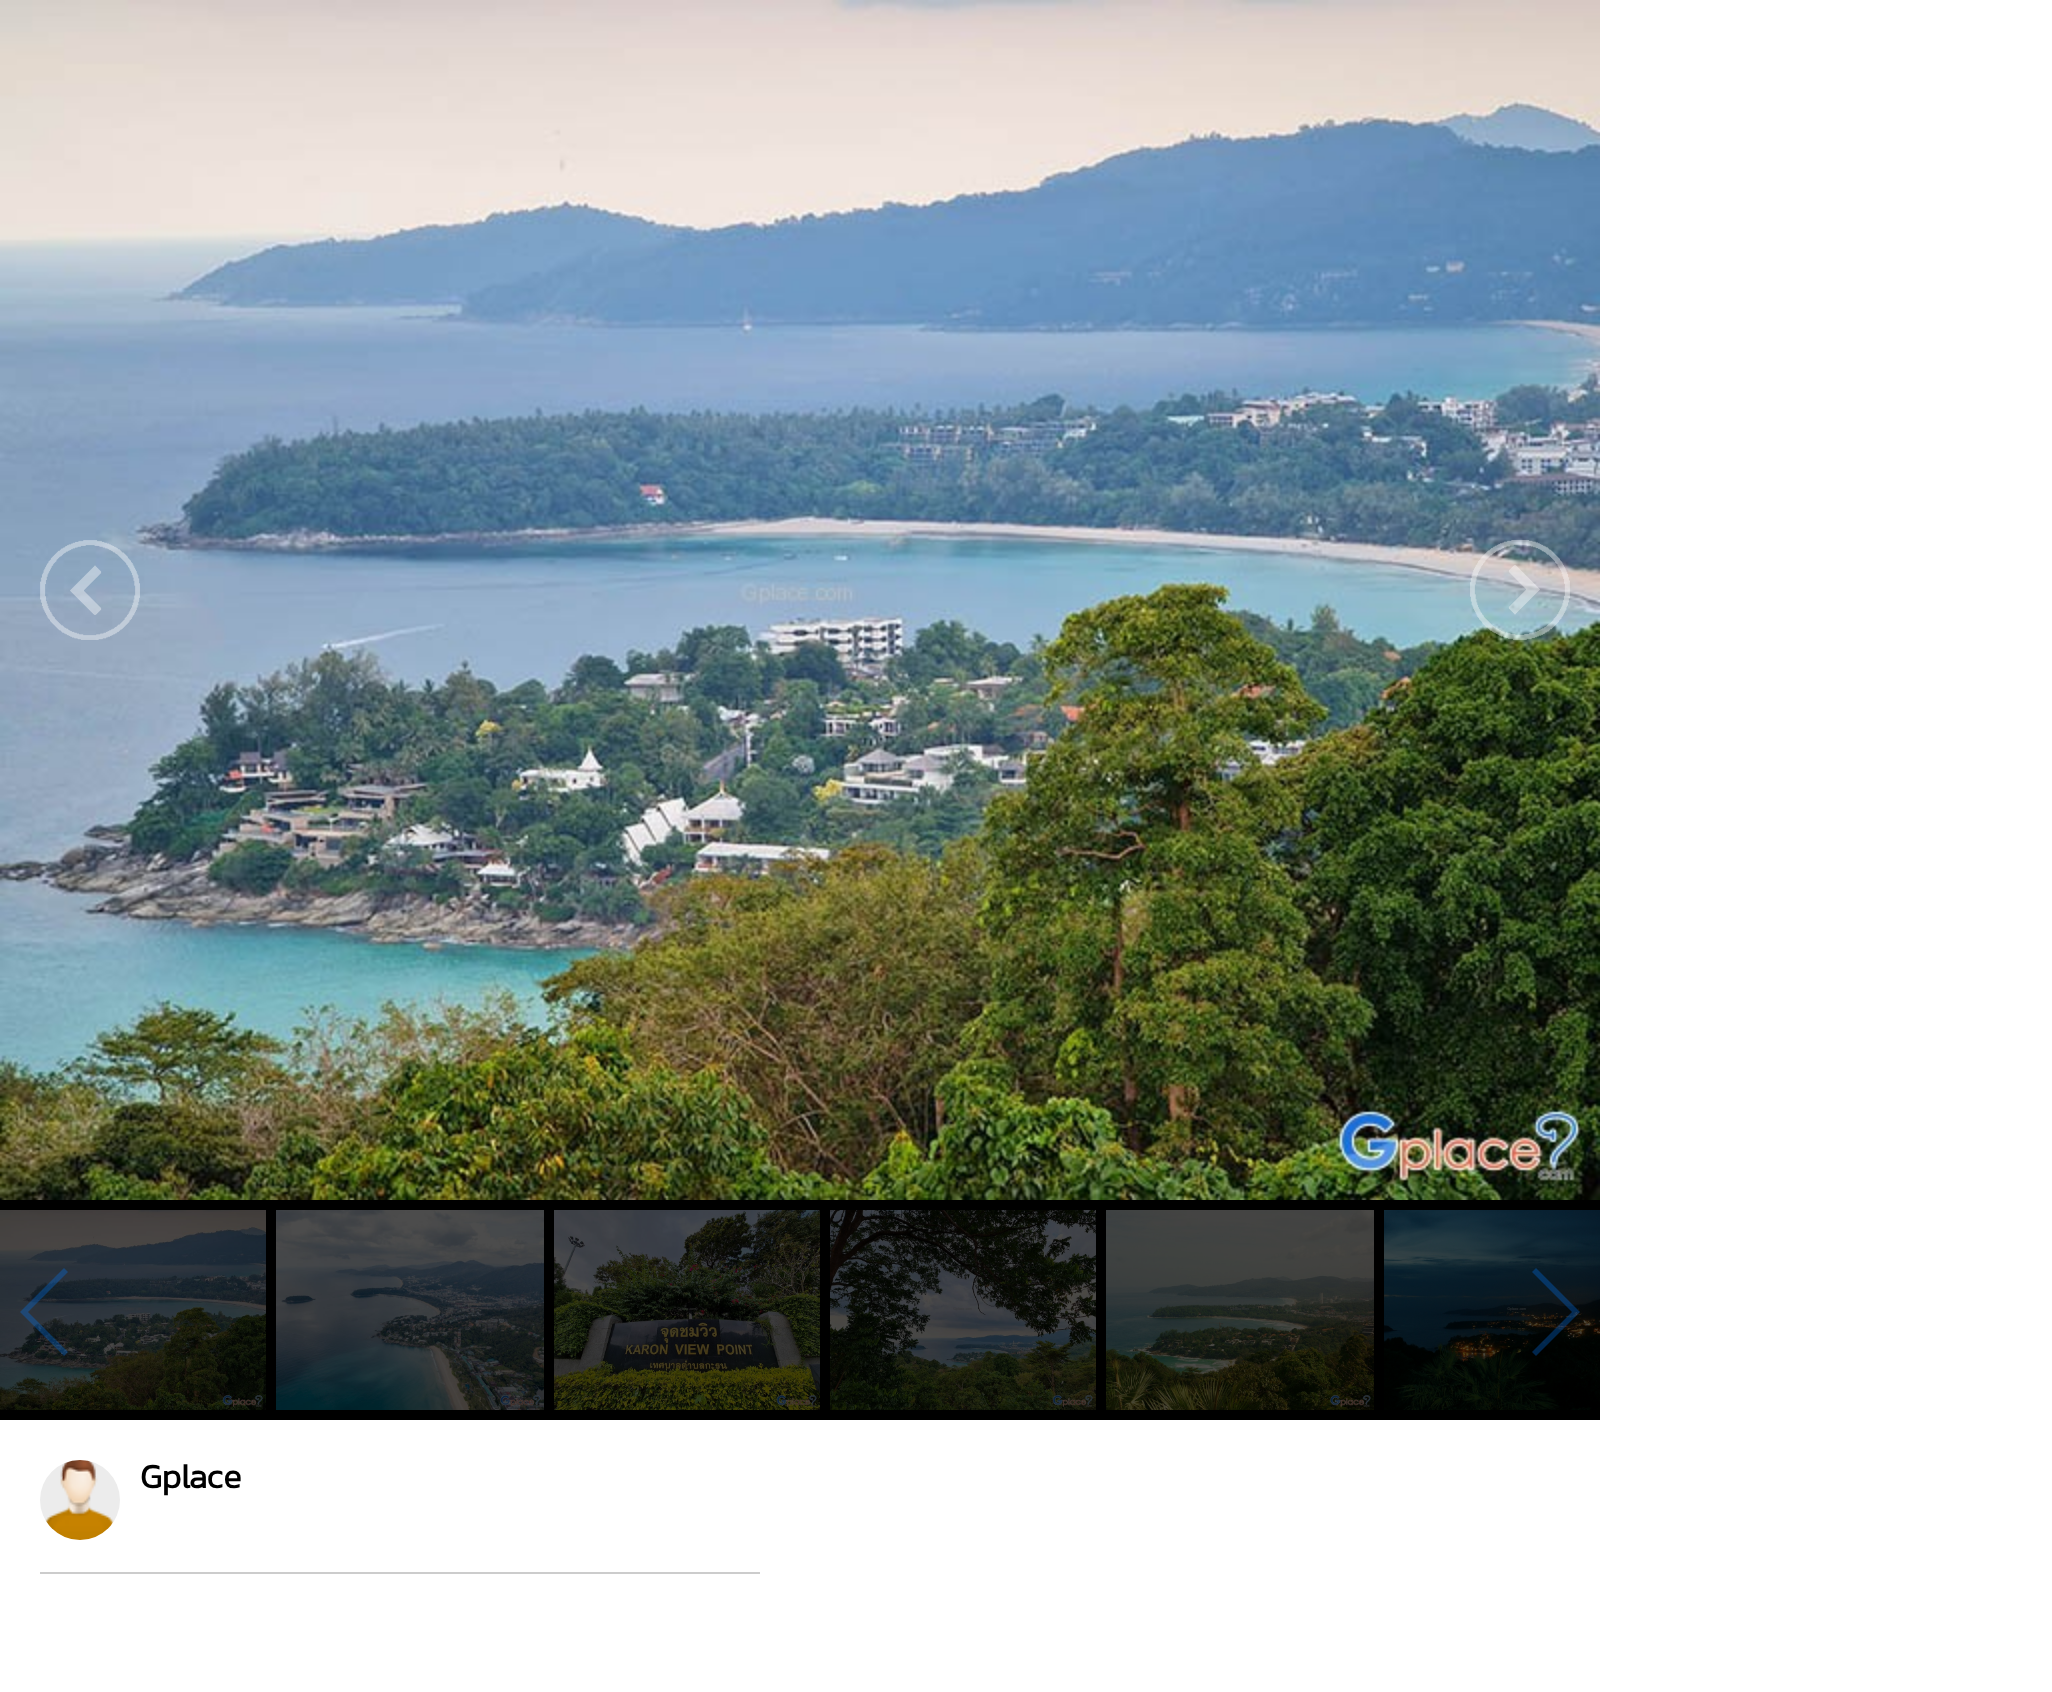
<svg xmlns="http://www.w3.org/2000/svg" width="2052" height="1692">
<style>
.a{font:bold 34px Kanit;fill:#000}
</style>
<rect width="100%" height="100%" fill="#fff"/>
<path fill="#000" d="M0 1200h1600v220H0z"/>
<image href="1.png" x="0" y="0" width="1600" height="1200"/>
<image href="2.png" x="40" y="540" width="100" height="100"/>
<image href="3.png" x="1470" y="540" width="100" height="100"/>
<image href="4.png" x="0" y="1210" width="266" height="200"/>
<image href="5.png" x="276" y="1210" width="268" height="200"/>
<image href="6.png" x="554" y="1210" width="266" height="200"/>
<image href="7.png" x="830" y="1210" width="266" height="200"/>
<image href="8.png" x="1106" y="1210" width="268" height="200"/>
<image href="9.png" x="1384" y="1210" width="216" height="200"/>
<path fill="#007aff4d" d="M20 1312l44-44l4 4l-40 40l40 40l-4 4z"/>
<path fill="#007aff4d" d="M1580 1312l-44 44l-4-4l40-40l-40-40l4-4z"/>
<image href="10.png" x="40" y="1460" width="80" height="80"/>
<path fill="#ccc" d="M40 1572h720v2H40z"/>
<text class="a" x="140" y="1488">Gplace</text>
</svg>
